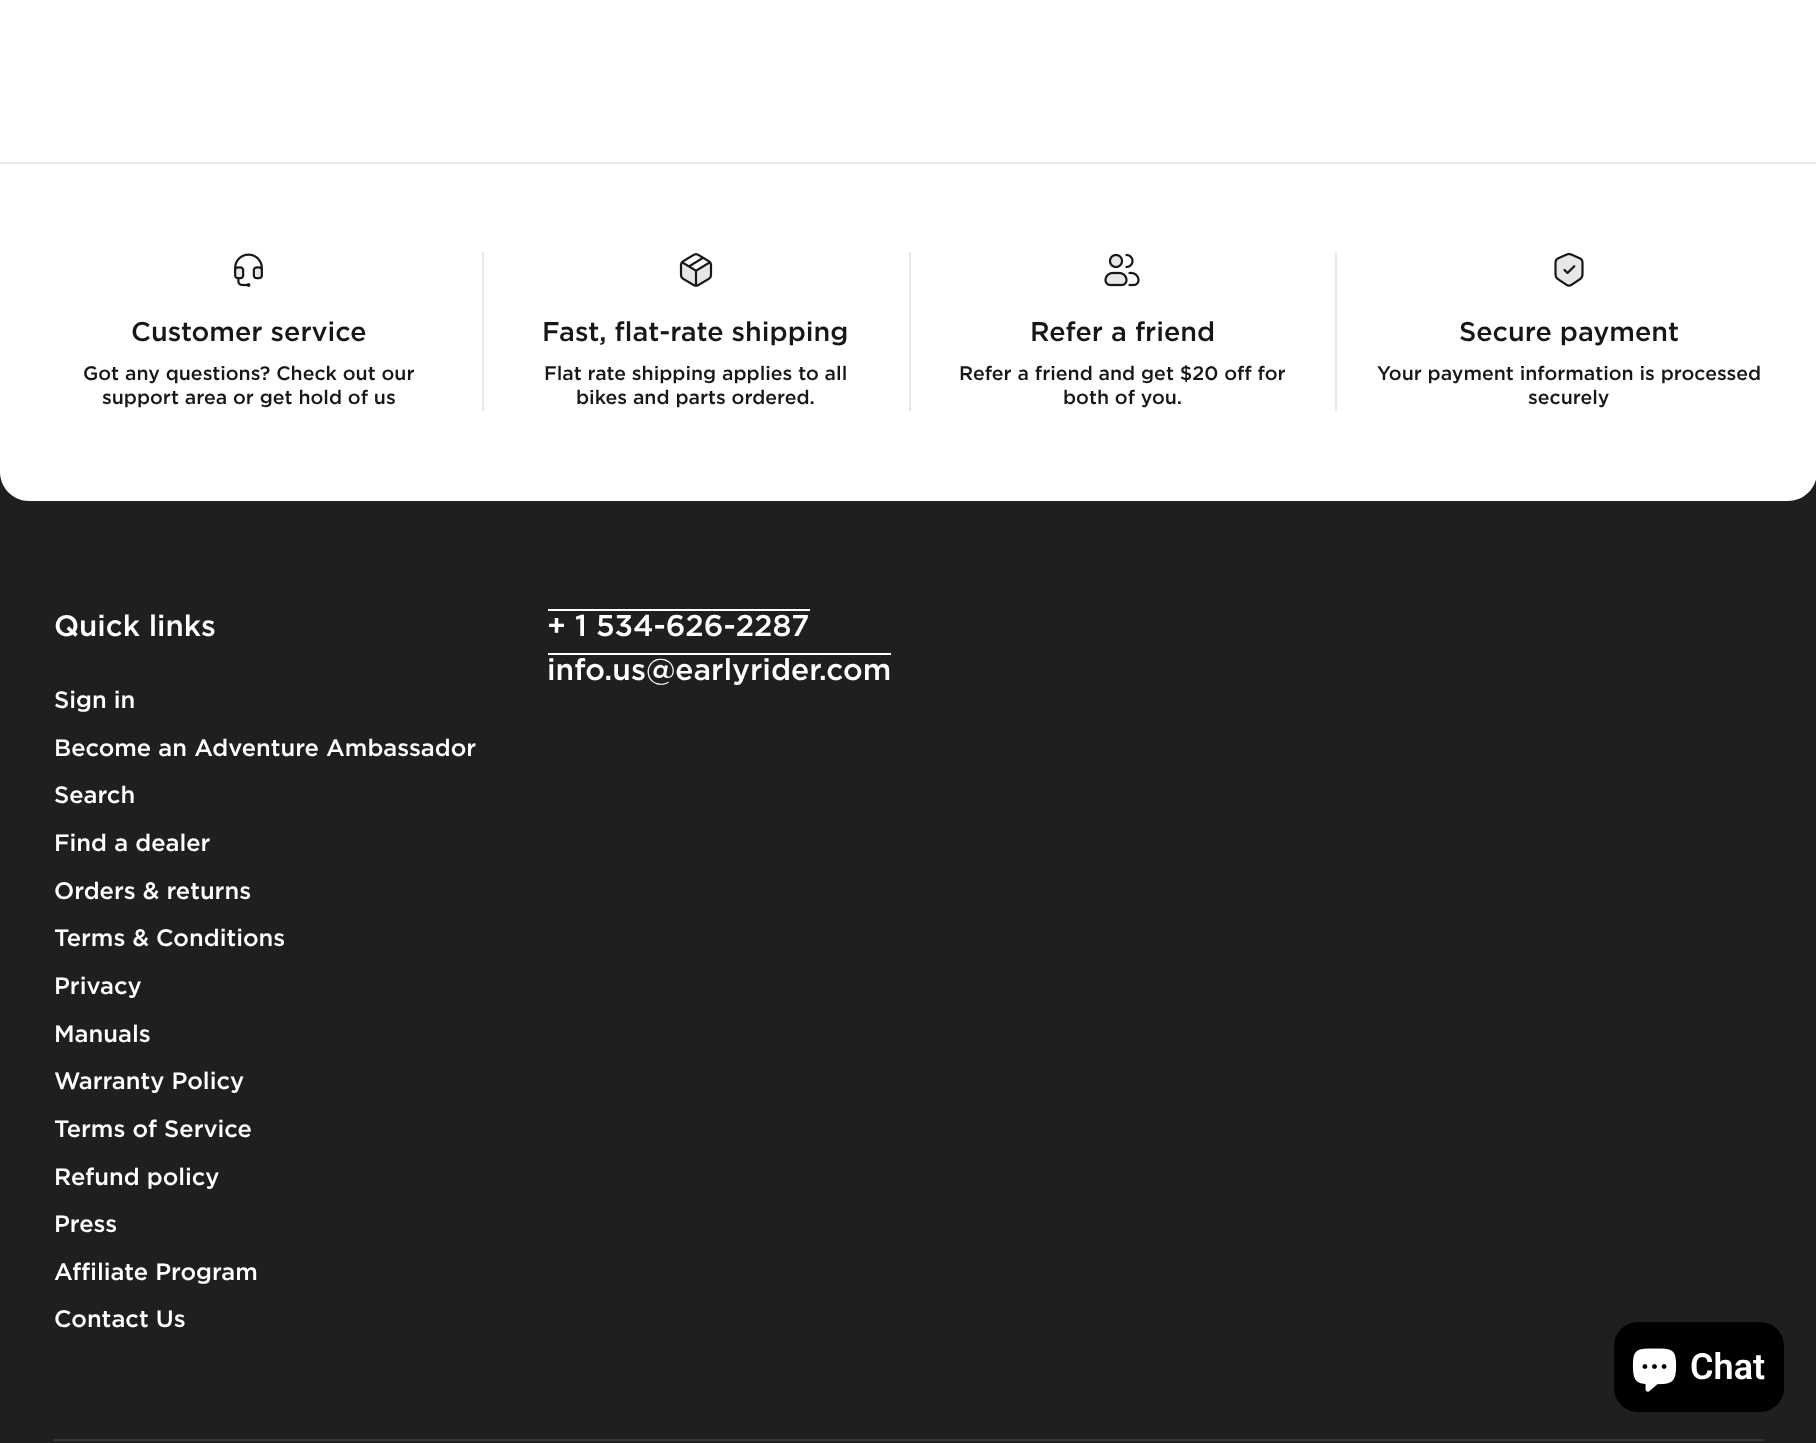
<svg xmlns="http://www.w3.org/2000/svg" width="1816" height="1443">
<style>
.a{font:500 27px Gotham;fill:#171717}
.b{font:500 19.5px Gotham;fill:#171717}
.c{font:500 29.5px Gotham;fill:#fff}
.d{font:500 23.75px Gotham;fill:#fff}
.e{font:500 30px Gotham;fill:#fff}
.f{font:600 36px Roboto;fill:#fff}
</style>
<rect width="100%" height="100%" fill="#fff"/>
<path fill="#1f1f1f" d="M0 473h1816v970H0z"/>
<path fill="#fff" d="M0 162h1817v310c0 16-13 29-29 29h-1759c-16 0-29-13-29-29z"/>
<path fill="#e8e8e8" d="M0 162h1816v2H0z"/>
<image href="1.png" x="234" y="253" width="29" height="34"/>
<path fill="#e8e8e8" d="M482 252h2v159H482z"/>
<image href="2.png" x="679" y="253" width="34" height="34"/>
<path fill="#e8e8e8" d="M909 252h2v159H909z"/>
<image href="3.png" x="1104" y="253" width="36" height="34"/>
<path fill="#e8e8e8" d="M1335 252h2v159H1335z"/>
<image href="4.png" x="1554" y="253" width="30" height="34"/>
<path fill="#fff" d="M548 609h262v2H548z"/>
<path fill="#fff" d="M548 653h343v2H548z"/>
<path fill="#393939" d="M54 1439h1709v2H54z"/>
<rect fill="#000" x="1614" y="1322" width="170" height="90" rx="24"/>
<image href="5.png" x="1632" y="1348" width="45" height="44"/>
<text class="a" x="131" y="341">Customer service</text>
<text class="b" x="83" y="380">Got any questions? Check out our</text>
<text class="b" x="102" y="404">support area or get hold of us</text>
<text class="a" x="542" y="341">Fast, flat-rate shipping</text>
<text class="b" x="544" y="380">Flat rate shipping applies to all</text>
<text class="b" x="576" y="404">bikes and parts ordered.</text>
<text class="a" x="1030" y="341">Refer a friend</text>
<text class="b" x="959" y="380">Refer a friend and get $20 off for</text>
<text class="b" x="1063" y="404">both of you.</text>
<text class="a" x="1459" y="341">Secure payment</text>
<text class="b" x="1377" y="380">Your payment information is processed</text>
<text class="b" x="1528" y="404">securely</text>
<text class="c" x="54" y="636">Quick links</text>
<text class="d" x="54" y="708">Sign in</text>
<text class="d" x="54" y="756">Become an Adventure Ambassador</text>
<text class="d" x="54" y="803">Search</text>
<text class="d" x="54" y="851">Find a dealer</text>
<text class="d" x="54" y="899">Orders &amp; returns</text>
<text class="d" x="54" y="946">Terms &amp; Conditions</text>
<text class="d" x="54" y="994">Privacy</text>
<text class="d" x="54" y="1042">Manuals</text>
<text class="d" x="54" y="1089">Warranty Policy</text>
<text class="d" x="54" y="1137">Terms of Service</text>
<text class="d" x="54" y="1185">Refund policy</text>
<text class="d" x="54" y="1232">Press</text>
<text class="d" x="54" y="1280">Affiliate Program</text>
<text class="d" x="54" y="1327">Contact Us</text>
<text class="e" x="547" y="636">+ 1 534-626-2287</text>
<text class="e" x="547" y="680">info.us@earlyrider.com</text>
<text class="f" x="1690" y="1379">Chat</text>
</svg>
